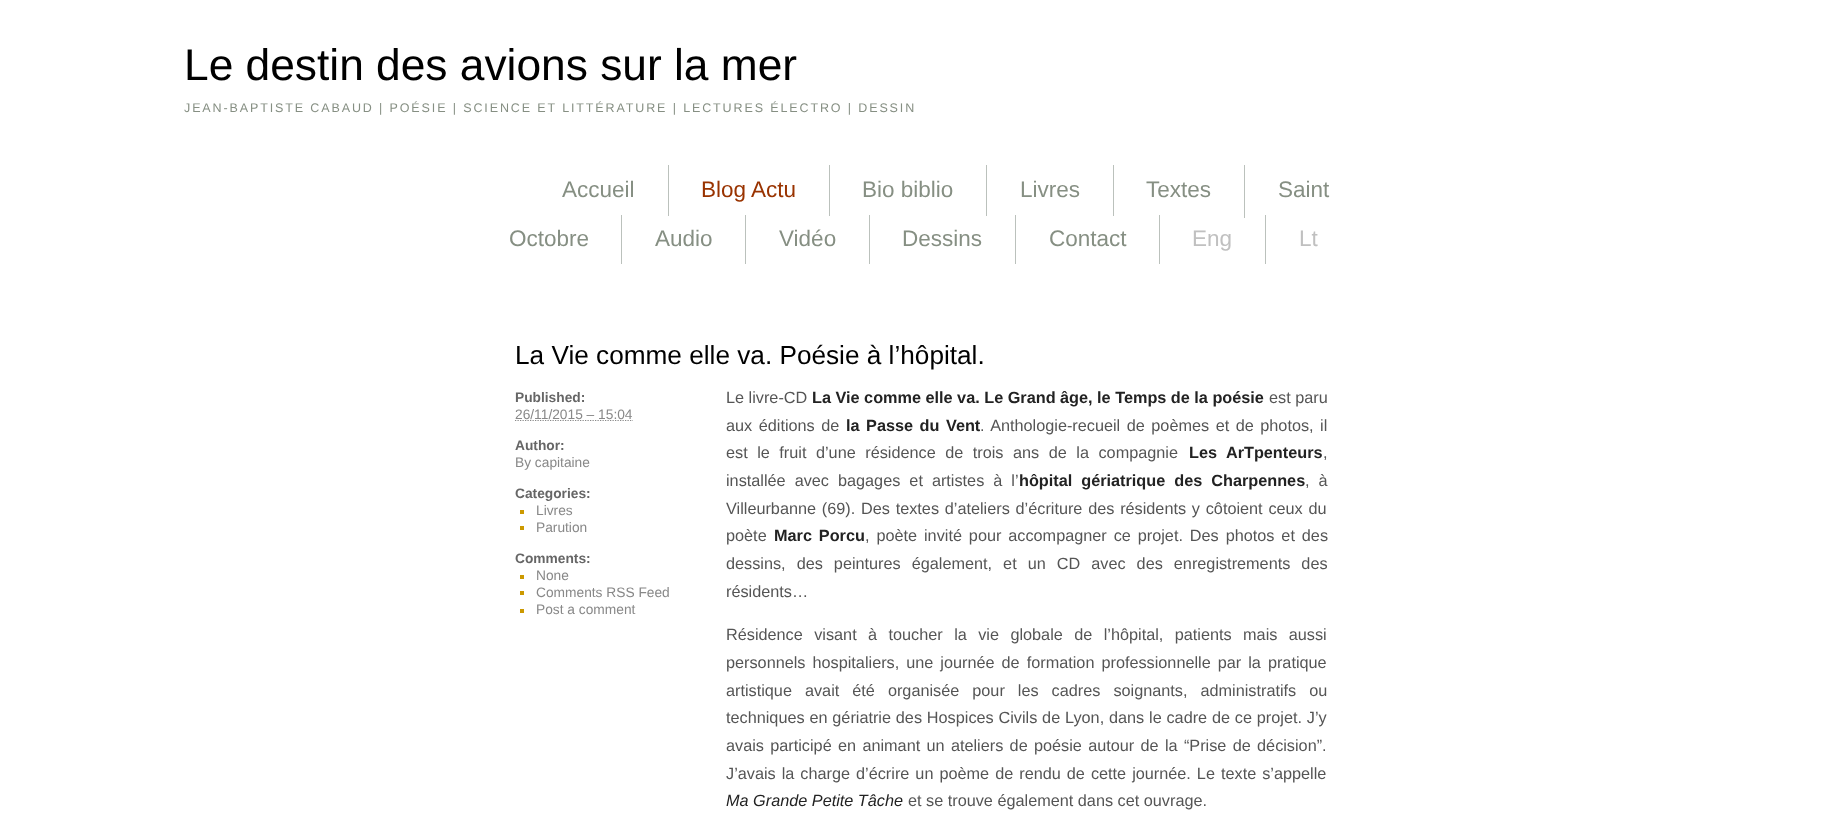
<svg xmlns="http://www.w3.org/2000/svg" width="1842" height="838">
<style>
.a{font:44.3px Liberation Sans;fill:#000}
.b{font:12.5px Liberation Sans;letter-spacing:1.88px;fill:#868f83}
.c{font:22.5px Liberation Sans;fill:#868f83}
.d{font:22.5px Liberation Sans;fill:#930}
.e{font:22.5px Liberation Sans;fill:#c0c0c0}
.f{font:26.2px Liberation Sans;fill:#000}
.g{font:bold 13.75px Liberation Sans;fill:#666}
.h{font:13.75px Liberation Sans;fill:#888}
.i{font:16.25px Liberation Sans;fill:#555}
.j{font:bold 16.25px Liberation Sans;fill:#222}
.k{font:italic 16.25px Liberation Sans;fill:#222}
</style>
<rect width="100%" height="100%" fill="#fff"/>
<path fill="#bbc1bc" d="M668 165h1v51H668z"/>
<path fill="#bbc1bc" d="M829 165h1v51H829z"/>
<path fill="#bbc1bc" d="M986 165h1v51H986z"/>
<path fill="#bbc1bc" d="M1113 165h1v51H1113z"/>
<path fill="#bbc1bc" d="M1244 165h1v53H1244z"/>
<path fill="#bbc1bc" d="M621 215h1v49H621z"/>
<path fill="#bbc1bc" d="M745 215h1v49H745z"/>
<path fill="#bbc1bc" d="M869 215h1v49H869z"/>
<path fill="#bbc1bc" d="M1015 215h1v49H1015z"/>
<path fill="#bbc1bc" d="M1159 215h1v49H1159z"/>
<path fill="#bbc1bc" d="M1265 215h1v49H1265z"/>
<path fill="none" stroke="#888" stroke-width="1.2" stroke-dasharray="1.25 1.25" d="M515 420.5h118"/>
<path fill="#c90" d="M520 510h4v4H520z"/>
<path fill="#c90" d="M520 526h4v4H520z"/>
<path fill="#c90" d="M520 575h4v4H520z"/>
<path fill="#c90" d="M520 591h4v4H520z"/>
<path fill="#c90" d="M520 609h4v4H520z"/>
<text class="a" x="184" y="80">Le destin des avions sur la mer</text>
<text class="b" x="184" y="112">JEAN-BAPTISTE CABAUD | POÉSIE | SCIENCE ET LITTÉRATURE | LECTURES ÉLECTRO | DESSIN</text>
<text class="c" x="562" y="197">Accueil</text>
<text class="d" x="701" y="197">Blog Actu</text>
<text class="c" x="862" y="197">Bio biblio</text>
<text class="c" x="1020" y="197">Livres</text>
<text class="c" x="1146" y="197">Textes</text>
<text class="c" x="1278" y="197">Saint</text>
<text class="c" x="509" y="246">Octobre</text>
<text class="c" x="655" y="246">Audio</text>
<text class="c" x="779" y="246">Vidéo</text>
<text class="c" x="902" y="246">Dessins</text>
<text class="c" x="1049" y="246">Contact</text>
<text class="e" x="1192" y="246">Eng</text>
<text class="e" x="1299" y="246">Lt</text>
<text class="f" x="515" y="364">La Vie comme elle va. Poésie à l’hôpital.</text>
<text class="g" x="515" y="402">Published:</text>
<text class="h" x="515" y="419">26/11/2015 – 15:04</text>
<text class="g" x="515" y="450">Author:</text>
<text class="h" x="515" y="467">By capitaine</text>
<text class="g" x="515" y="498">Categories:</text>
<text class="h" x="536" y="515">Livres</text>
<text class="h" x="536" y="532">Parution</text>
<text class="g" x="515" y="563">Comments:</text>
<text class="h" x="536" y="580">None</text>
<text class="h" x="536" y="597">Comments RSS Feed</text>
<text class="h" x="536" y="614">Post a comment</text>
<text class="i" x="726" y="403">Le livre-CD</text>
<text class="j" x="812" y="403">La Vie comme elle va. Le Grand âge, le Temps de la poésie</text>
<text class="i" x="1269" y="403">est paru</text>
<text class="i" x="726" y="431" word-spacing="2">aux éditions de</text>
<text class="j" x="846" y="431" word-spacing="2">la Passe du Vent</text>
<text class="i" x="980" y="431" word-spacing="2">. Anthologie-recueil de poèmes et de photos, il</text>
<text class="i" x="726" y="458" word-spacing="5">est le fruit d’une résidence de trois ans de la compagnie</text>
<text class="j" x="1189" y="458" word-spacing="5">Les ArTpenteurs</text>
<text class="i" x="1323" y="458">,</text>
<text class="i" x="726" y="486" word-spacing="4.5">installée avec bagages et artistes à l’</text>
<text class="j" x="1019" y="486" word-spacing="4.5">hôpital gériatrique des Charpennes</text>
<text class="i" x="1305" y="486" word-spacing="4.5">, à</text>
<text class="i" x="726" y="514" word-spacing="1.25">Villeurbanne (69). Des textes d’ateliers d’écriture des résidents y côtoient ceux du</text>
<text class="i" x="726" y="541">poète</text>
<text class="j" x="774" y="541" word-spacing="2.4">Marc Porcu</text>
<text class="i" x="865" y="541" word-spacing="2.4">, poète invité pour accompagner ce projet. Des photos et des</text>
<text class="i" x="726" y="569" word-spacing="6.5">dessins, des peintures également, et un CD avec des enregistrements des</text>
<text class="i" x="726" y="597">résidents…</text>
<text class="i" x="726" y="640" word-spacing="6.9">Résidence visant à toucher la vie globale de l’hôpital, patients mais aussi</text>
<text class="i" x="726" y="668" word-spacing="2.5">personnels hospitaliers, une journée de formation professionnelle par la pratique</text>
<text class="i" x="726" y="696" word-spacing="8.5">artistique avait été organisée pour les cadres soignants, administratifs ou</text>
<text class="i" x="726" y="723" word-spacing="0.3">techniques en gériatrie des Hospices Civils de Lyon, dans le cadre de ce projet. J’y</text>
<text class="i" x="726" y="751" word-spacing="1.8">avais participé en animant un ateliers de poésie autour de la “Prise de décision”.</text>
<text class="i" x="726" y="779" word-spacing="1.5">J’avais la charge d’écrire un poème de rendu de cette journée. Le texte s’appelle</text>
<text class="k" x="726" y="806">Ma Grande Petite Tâche</text>
<text class="i" x="908" y="806">et se trouve également dans cet ouvrage.</text>
</svg>
